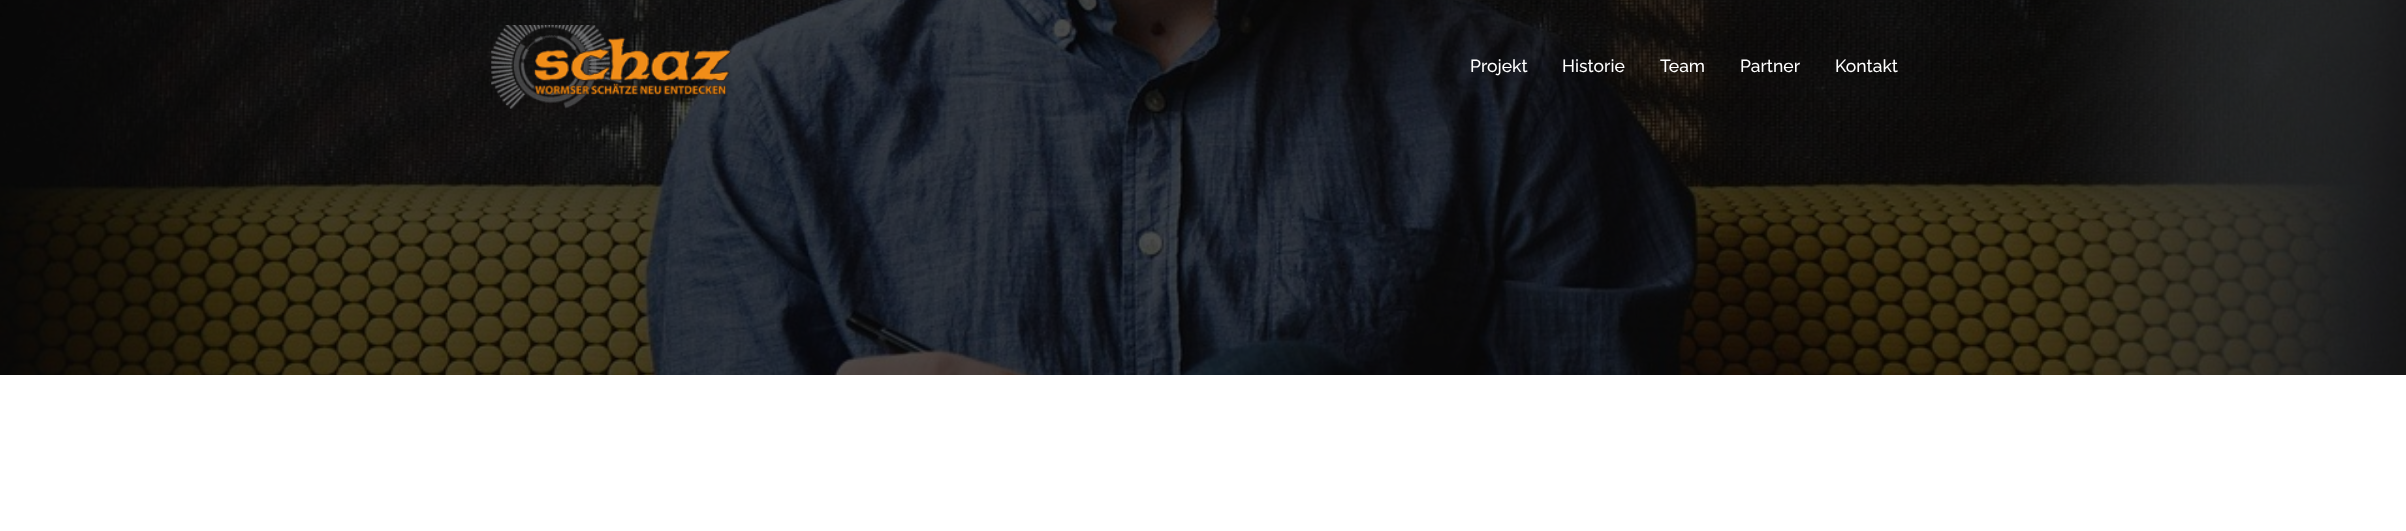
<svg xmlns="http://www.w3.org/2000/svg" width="2406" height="531">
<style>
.a{font:500 17.5px Raleway;fill:#fff}
</style>
<rect width="100%" height="100%" fill="#fff"/>
<image href="1.png" x="0" y="0" width="2406" height="375"/>
<image href="2.png" x="491" y="25" width="241" height="84"/>
<text class="a" x="1470" y="72">Projekt</text>
<text class="a" x="1562" y="72">Historie</text>
<text class="a" x="1660" y="72">Team</text>
<text class="a" x="1740" y="72">Partner</text>
<text class="a" x="1835" y="72">Kontakt</text>
</svg>
